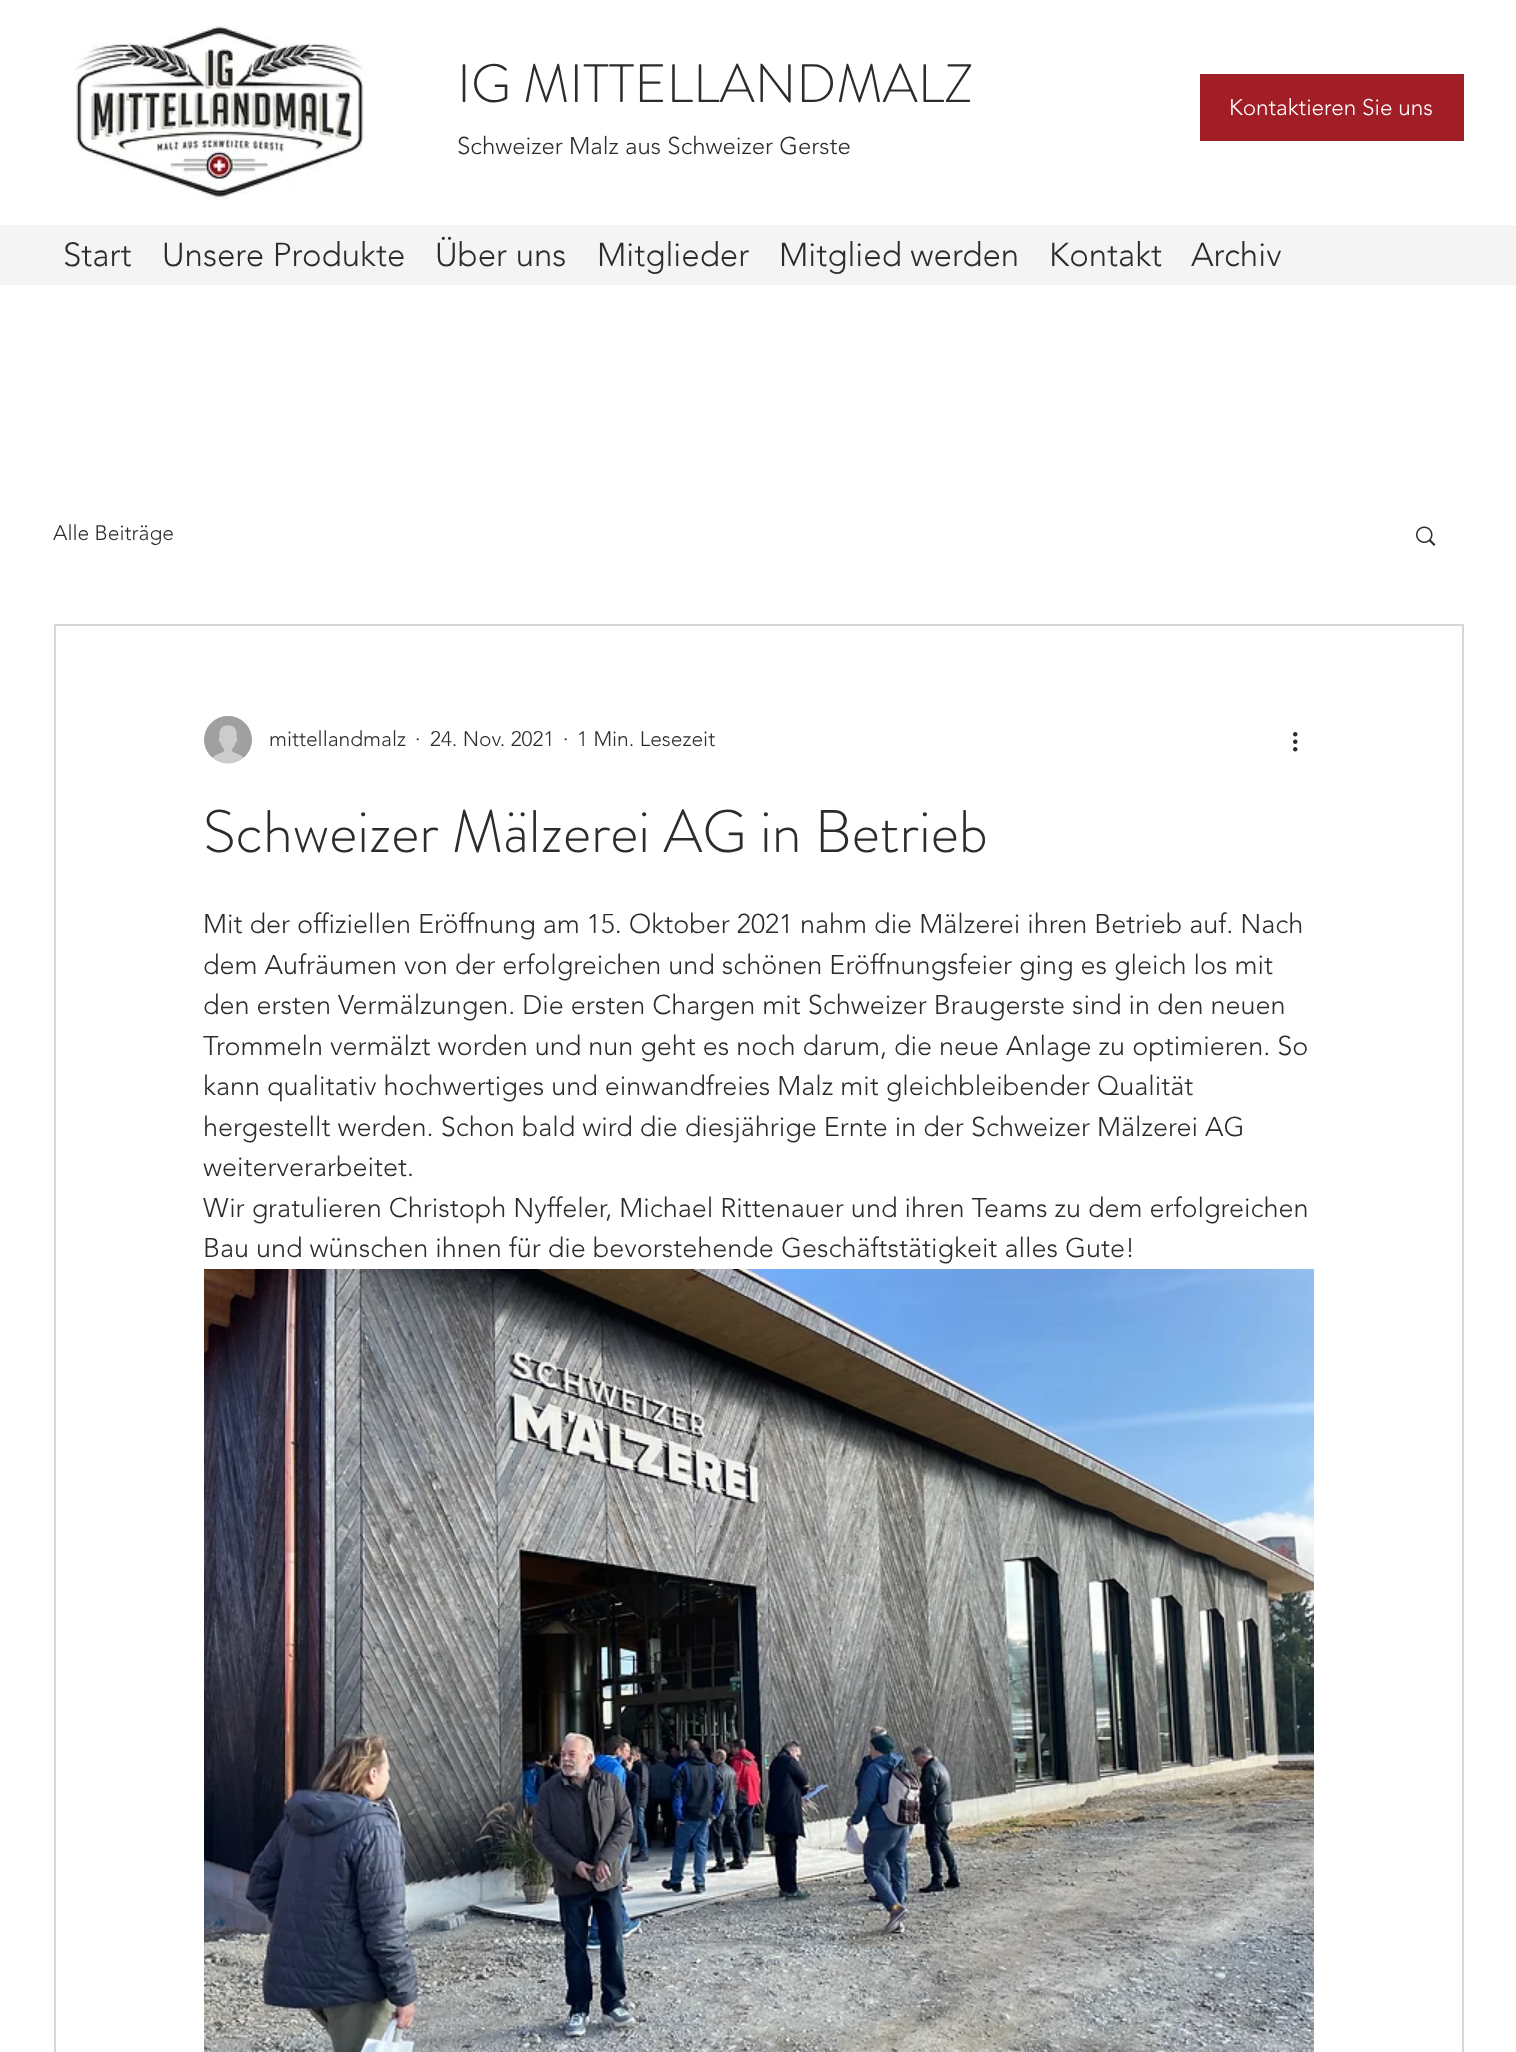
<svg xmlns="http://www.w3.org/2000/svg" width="1516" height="2052">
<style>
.a{font:300 54px 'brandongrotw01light';fill:#2c2c2c}
.b{font:300 24px 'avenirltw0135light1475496';fill:#2c2c2c}
.c{font:300 22.5px 'avenirltw0135light1475496';fill:#fff}
.d{font:300 33px 'avenirltw0135light1475496';fill:#2c2c2c}
.e{font:300 21px 'avenirltw0135light1475496';fill:#2c2c2c}
.f{font:300 60px 'brandongrotw01light';fill:#2c2c2c}
.g{font:300 27px 'avenirltw0135light1475496';fill:#2c2c2c}
</style>
<rect width="100%" height="100%" fill="#fff"/>
<image href="1.png" x="74" y="26" width="293" height="174"/>
<path fill="#a11e27" d="M1200 74h264v67H1200z"/>
<path fill="#f4f4f4" d="M0 225h1516v60H0z"/>
<image href="2.png" x="1416" y="526" width="20" height="20"/>
<path fill="none" stroke="#d7d7d7" stroke-width="2" d="M55 625h1408v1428H55z"/>
<image href="3.png" x="204" y="716" width="48" height="48"/>
<image href="4.png" x="1293" y="732" width="5" height="20"/>
<image href="5.png" x="204" y="1269" width="1110" height="783"/>
<text class="a" x="457" y="102">IG MITTELLANDMALZ</text>
<text class="b" x="457" y="154">Schweizer Malz aus Schweizer Gerste</text>
<text class="c" x="1229" y="115">Kontaktieren Sie uns</text>
<text class="d" x="63" y="266">Start</text>
<text class="d" x="162" y="266">Unsere Produkte</text>
<text class="d" x="435" y="266">Über uns</text>
<text class="d" x="597" y="266">Mitglieder</text>
<text class="d" x="779" y="266">Mitglied werden</text>
<text class="d" x="1049" y="266">Kontakt</text>
<text class="d" x="1191" y="266">Archiv</text>
<text class="e" x="53" y="540">Alle Beiträge</text>
<text class="e" x="269" y="746">mittellandmalz</text>
<text class="e" x="415" y="746">·</text>
<text class="e" x="430" y="746">24. Nov. 2021</text>
<text class="e" x="563" y="746">·</text>
<text class="e" x="577" y="746">1 Min. Lesezeit</text>
<text class="f" x="203" y="852">Schweizer Mälzerei AG in Betrieb</text>
<text class="g" x="203" y="933">Mit der offiziellen Eröffnung am 15. Oktober 2021 nahm die Mälzerei ihren Betrieb auf. Nach</text>
<text class="g" x="203" y="974">dem Aufräumen von der erfolgreichen und schönen Eröffnungsfeier ging es gleich los mit</text>
<text class="g" x="203" y="1014">den ersten Vermälzungen. Die ersten Chargen mit Schweizer Braugerste sind in den neuen</text>
<text class="g" x="203" y="1055">Trommeln vermälzt worden und nun geht es noch darum, die neue Anlage zu optimieren. So</text>
<text class="g" x="203" y="1095">kann qualitativ hochwertiges und einwandfreies Malz mit gleichbleibender Qualität</text>
<text class="g" x="203" y="1136">hergestellt werden. Schon bald wird die diesjährige Ernte in der Schweizer Mälzerei AG</text>
<text class="g" x="203" y="1176">weiterverarbeitet.</text>
<text class="g" x="203" y="1217">Wir gratulieren Christoph Nyffeler, Michael Rittenauer und ihren Teams zu dem erfolgreichen</text>
<text class="g" x="203" y="1257">Bau und wünschen ihnen für die bevorstehende Geschäftstätigkeit alles Gute!</text>
</svg>
